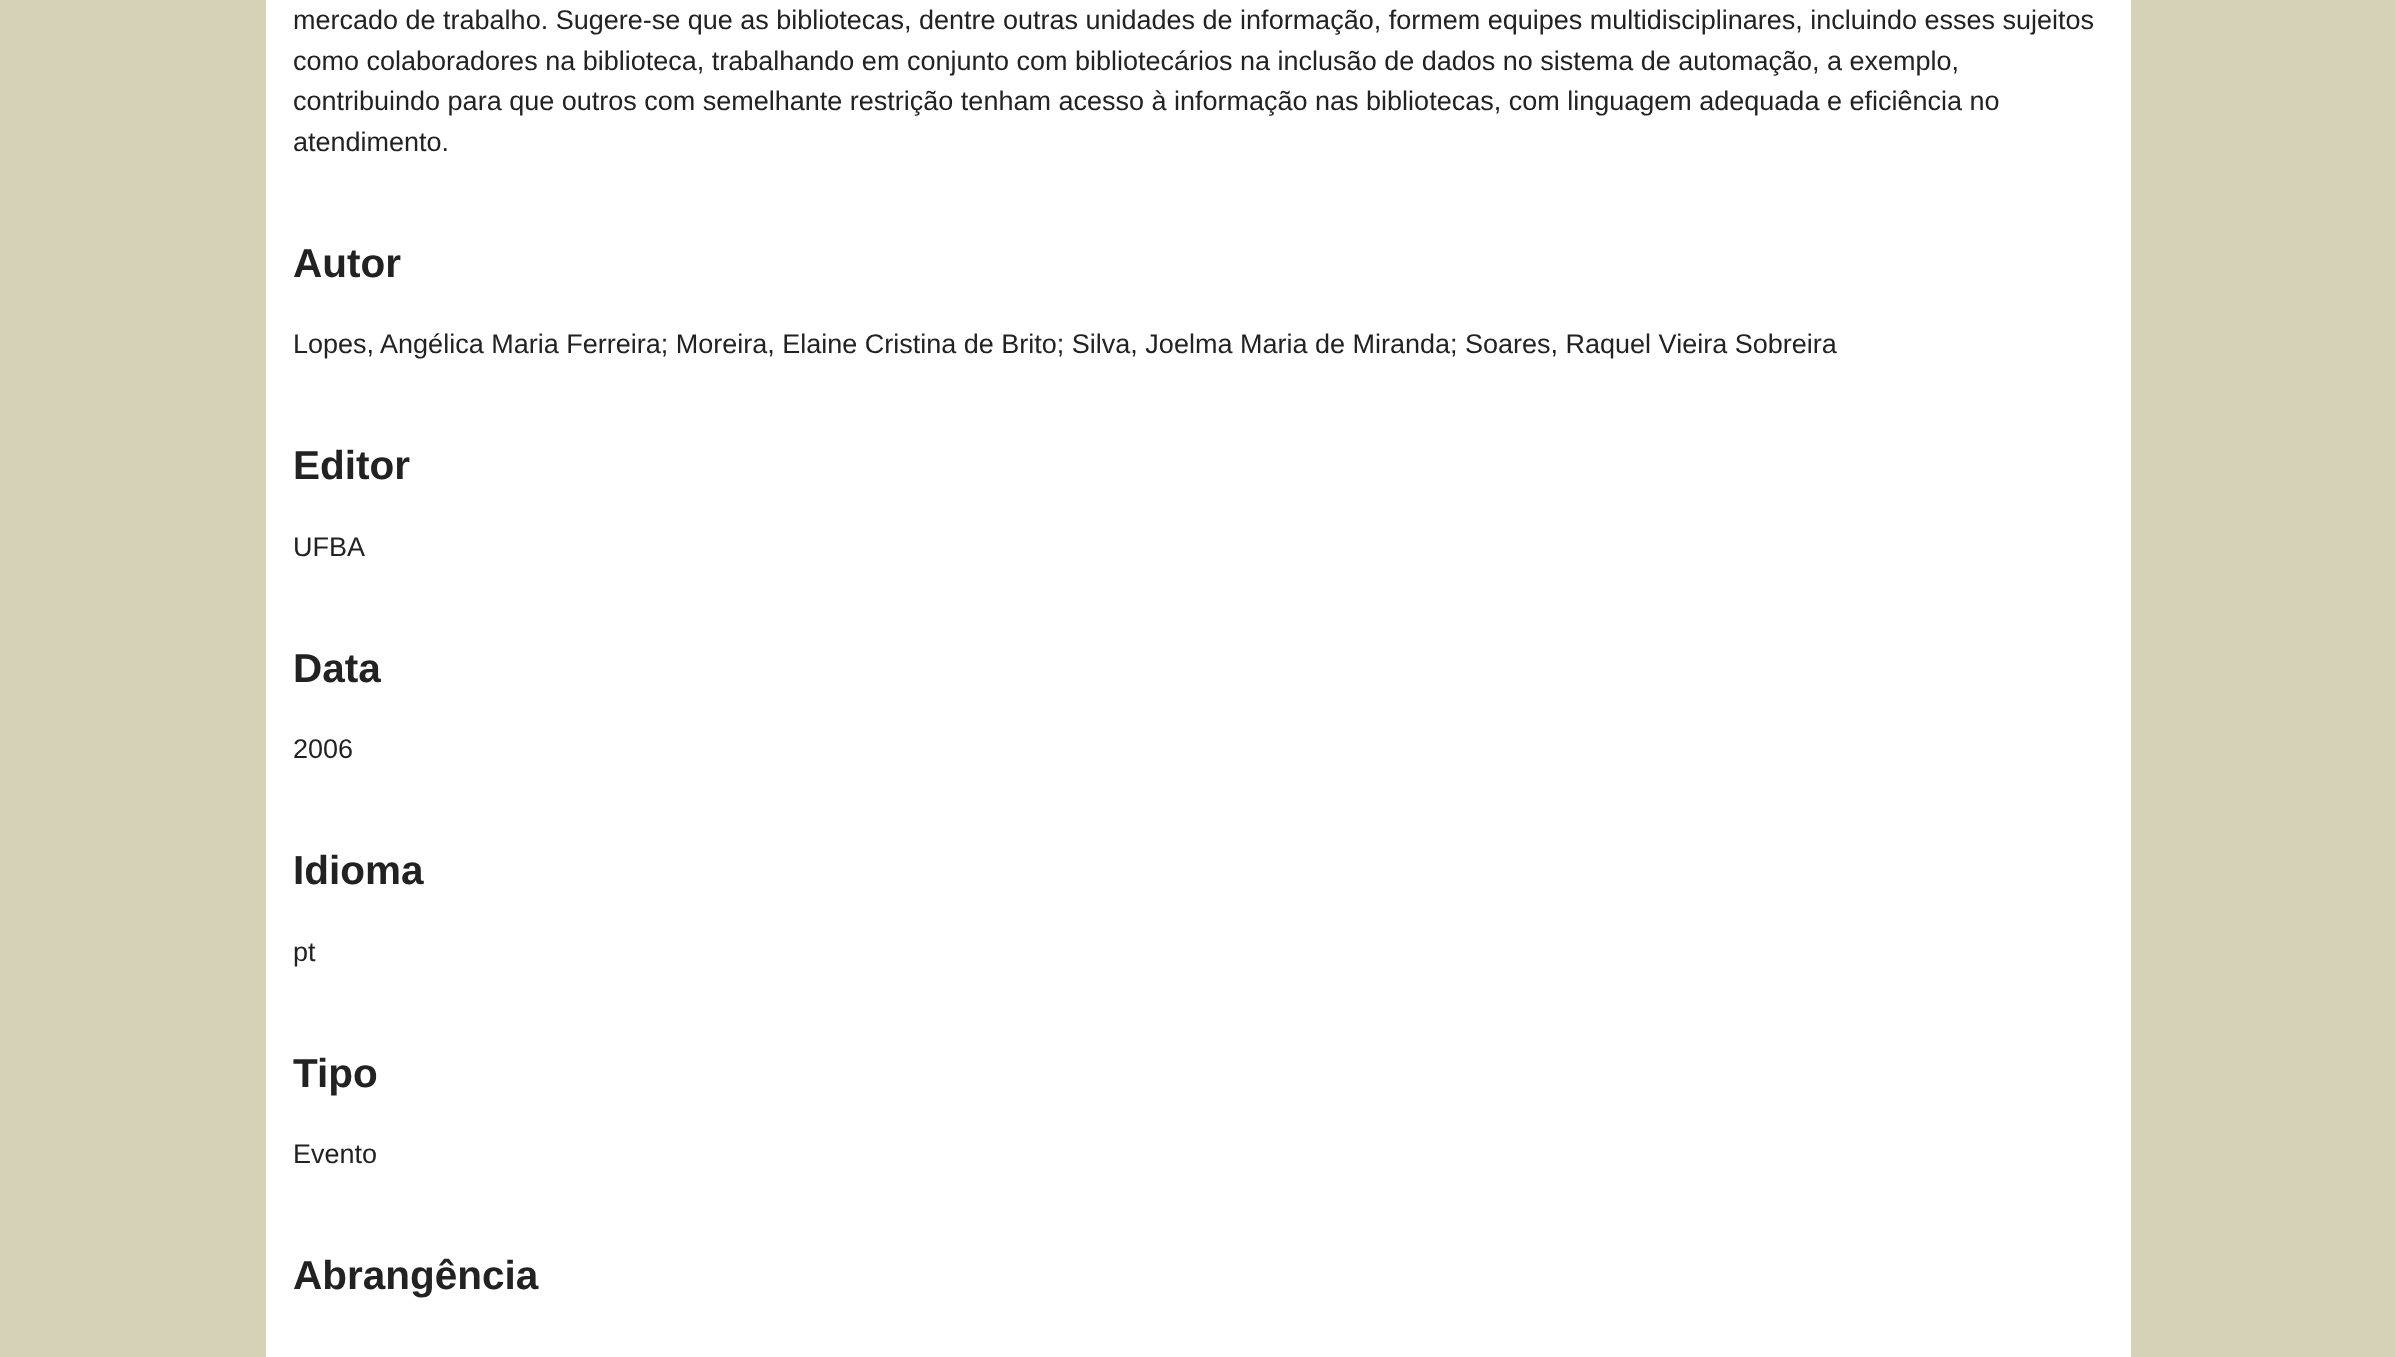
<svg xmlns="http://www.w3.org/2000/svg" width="2395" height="1357">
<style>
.a{font:27px Liberation Sans;fill:#222}
.b{font:bold 40.5px Liberation Sans;fill:#222}
</style>
<rect width="100%" height="100%" fill="#d5d2b8"/>
<path fill="#fff" d="M266 0h1865v1357H266z"/>
<text class="a" x="293" y="29">mercado de trabalho. Sugere-se que as bibliotecas, dentre outras unidades de informação, formem equipes multidisciplinares, incluindo esses sujeitos</text>
<text class="a" x="293" y="70">como colaboradores na biblioteca, trabalhando em conjunto com bibliotecários na inclusão de dados no sistema de automação, a exemplo,</text>
<text class="a" x="293" y="110">contribuindo para que outros com semelhante restrição tenham acesso à informação nas bibliotecas, com linguagem adequada e eficiência no</text>
<text class="a" x="293" y="151">atendimento.</text>
<text class="b" x="293" y="277">Autor</text>
<text class="a" x="293" y="353">Lopes, Angélica Maria Ferreira; Moreira, Elaine Cristina de Brito; Silva, Joelma Maria de Miranda; Soares, Raquel Vieira Sobreira</text>
<text class="b" x="293" y="479">Editor</text>
<text class="a" x="293" y="556">UFBA</text>
<text class="b" x="293" y="682">Data</text>
<text class="a" x="293" y="758">2006</text>
<text class="b" x="293" y="884">Idioma</text>
<text class="a" x="293" y="961">pt</text>
<text class="b" x="293" y="1087">Tipo</text>
<text class="a" x="293" y="1163">Evento</text>
<text class="b" x="293" y="1289">Abrangência</text>
</svg>
